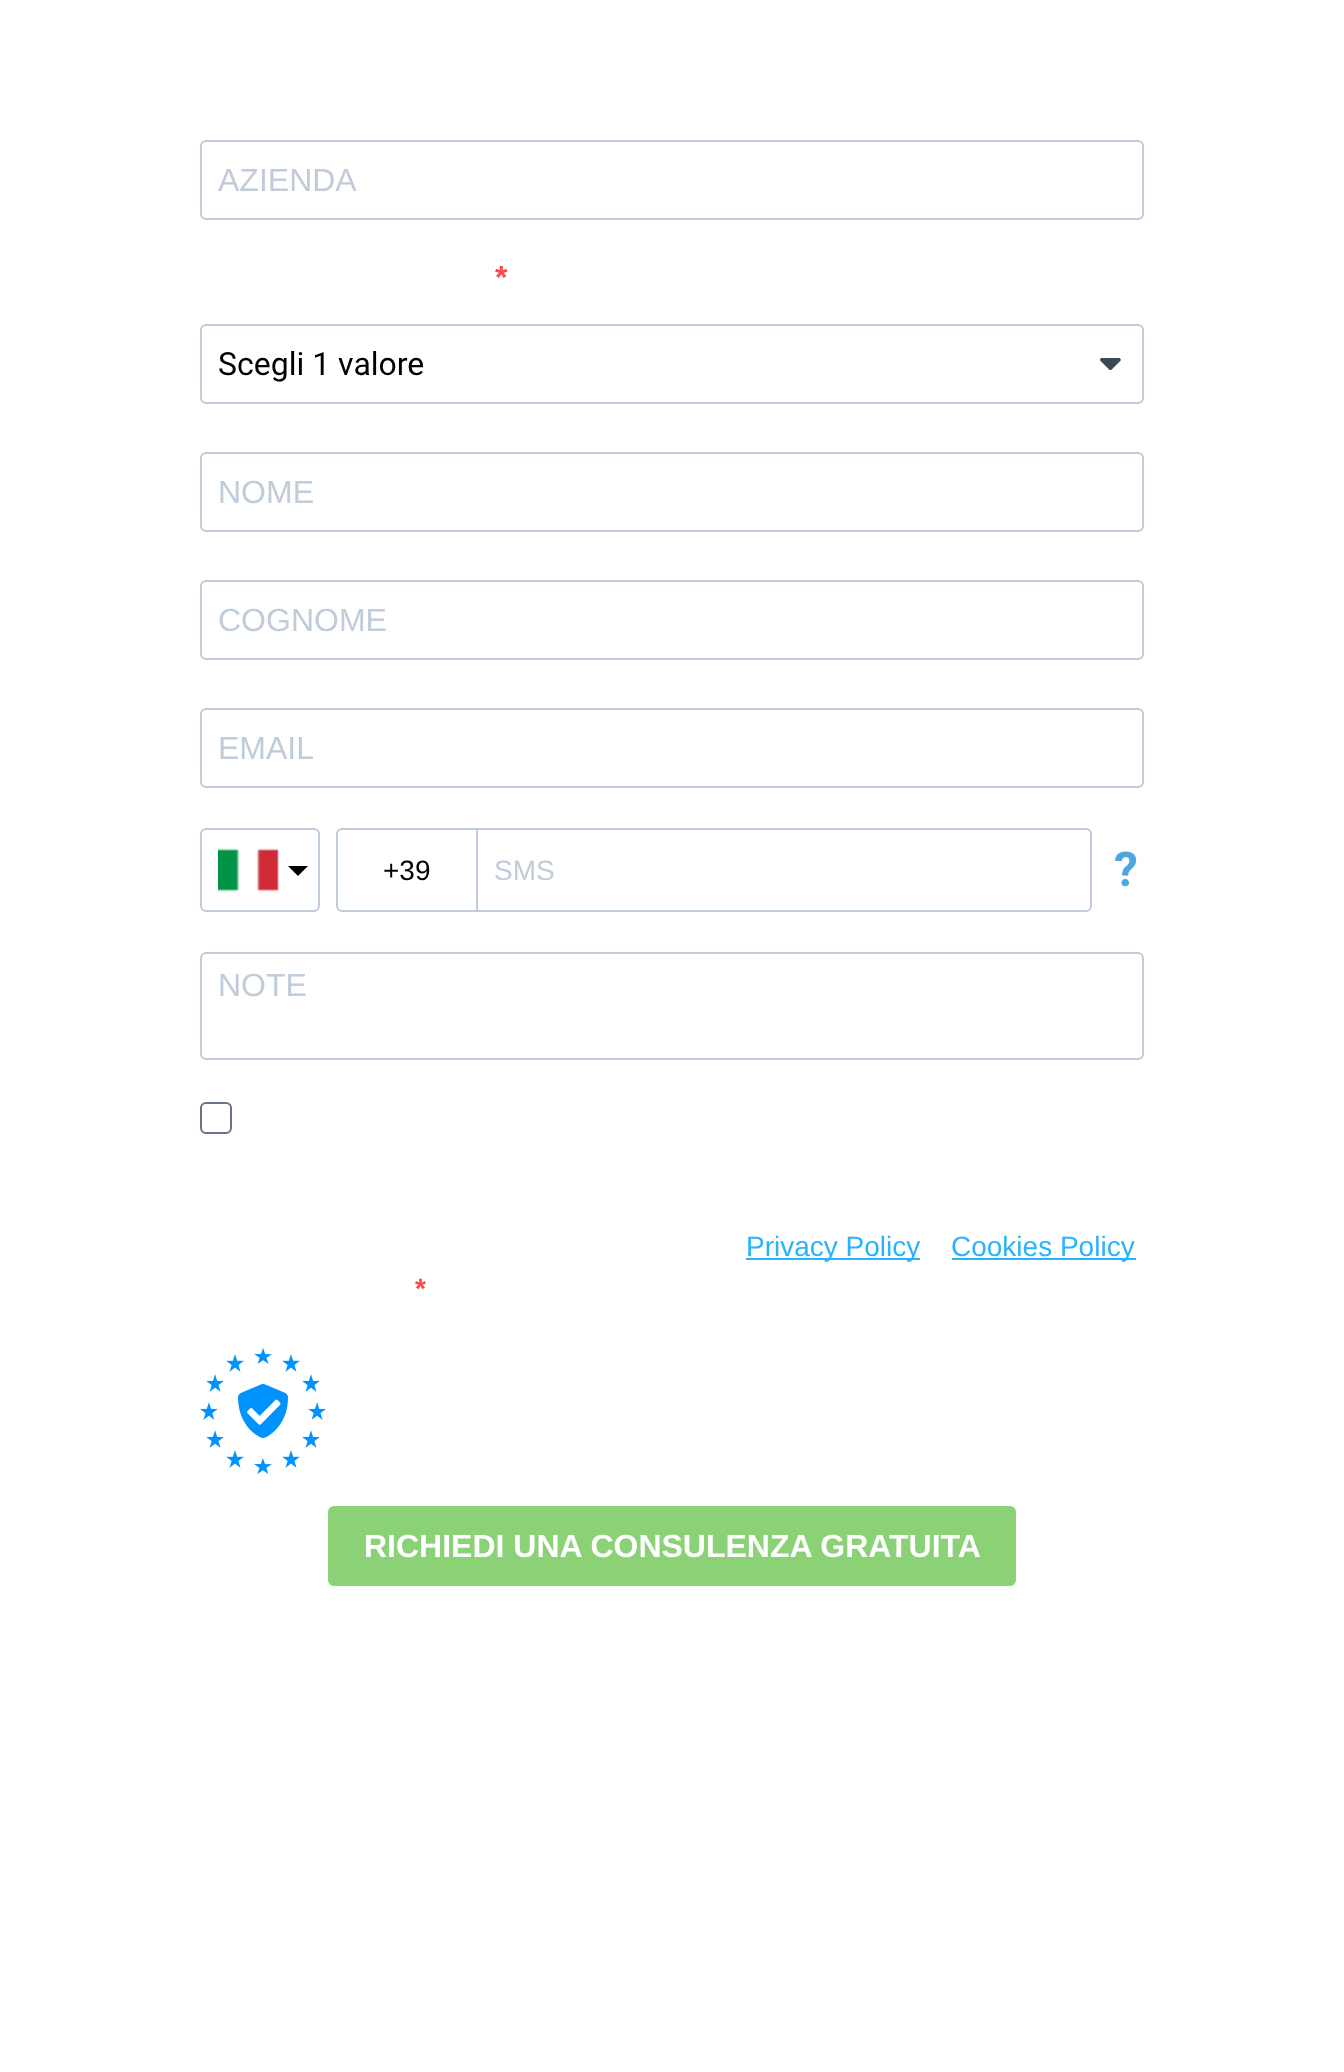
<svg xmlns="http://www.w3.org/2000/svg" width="1344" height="2072">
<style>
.a{font:32px Liberation Sans;fill:#c0ccda}
.b{font:bold 32px Liberation Sans;fill:#ff4949}
.c{font:32px Roboto;fill:#000}
.d{font:28px Liberation Sans;fill:#000}
.e{font:28px Liberation Sans;fill:#c0ccda}
.f{font:bold 48px Roboto;fill:#4da6e0}
.g{font:28px Liberation Sans;fill:#2bb2fc}
.h{font:bold 28px Liberation Sans;fill:#ff4949}
.i{font:bold 32px Liberation Sans;fill:#fff}
</style>
<rect width="100%" height="100%" fill="#fff"/>
<rect fill="none" stroke="#c0ccda" stroke-width="2" x="201" y="141" width="942" height="78" rx="5"/>
<rect fill="none" stroke="#c0ccda" stroke-width="2" x="201" y="325" width="942" height="78" rx="5"/>
<image href="1.png" x="1100" y="358" width="21" height="12"/>
<rect fill="none" stroke="#c0ccda" stroke-width="2" x="201" y="453" width="942" height="78" rx="5"/>
<rect fill="none" stroke="#c0ccda" stroke-width="2" x="201" y="581" width="942" height="78" rx="5"/>
<rect fill="none" stroke="#c0ccda" stroke-width="2" x="201" y="709" width="942" height="78" rx="5"/>
<rect fill="none" stroke="#c0ccda" stroke-width="2" x="201" y="829" width="118" height="82" rx="5"/>
<image href="2.png" x="218" y="848" width="61" height="45"/>
<path fill="#000" d="M288 866h20l-10 10z"/>
<rect fill="none" stroke="#c0ccda" stroke-width="2" x="337" y="829" width="754" height="82" rx="5"/>
<path fill="#c0ccda" d="M476 830h2v80H476z"/>
<rect fill="none" stroke="#c0ccda" stroke-width="2" x="201" y="953" width="942" height="106" rx="5"/>
<rect fill="none" stroke="#687484" stroke-width="2" x="201" y="1103" width="30" height="30" rx="5"/>
<path fill="#2bb2fc" d="M746 1258h174v2H746z"/>
<path fill="#2bb2fc" d="M952 1258h184v2H952z"/>
<image href="3.png" x="200" y="1348" width="126" height="126"/>
<rect fill="#8bd277" x="328" y="1506" width="688" height="80" rx="6"/>
<text class="a" x="218" y="191">AZIENDA</text>
<text class="b" x="495" y="288">*</text>
<text class="c" x="218" y="375">Scegli 1 valore</text>
<text class="a" x="218" y="503">NOME</text>
<text class="a" x="218" y="631">COGNOME</text>
<text class="a" x="218" y="759">EMAIL</text>
<text class="d" x="383" y="880">+39</text>
<text class="e" x="494" y="880">SMS</text>
<text class="f" x="1114" y="886">?</text>
<text class="a" x="218" y="996">NOTE</text>
<text class="g" x="746" y="1256">Privacy Policy</text>
<text class="g" x="951" y="1256">Cookies Policy</text>
<text class="h" x="415" y="1298">*</text>
<text class="i" x="364" y="1557">RICHIEDI UNA CONSULENZA GRATUITA</text>
</svg>
